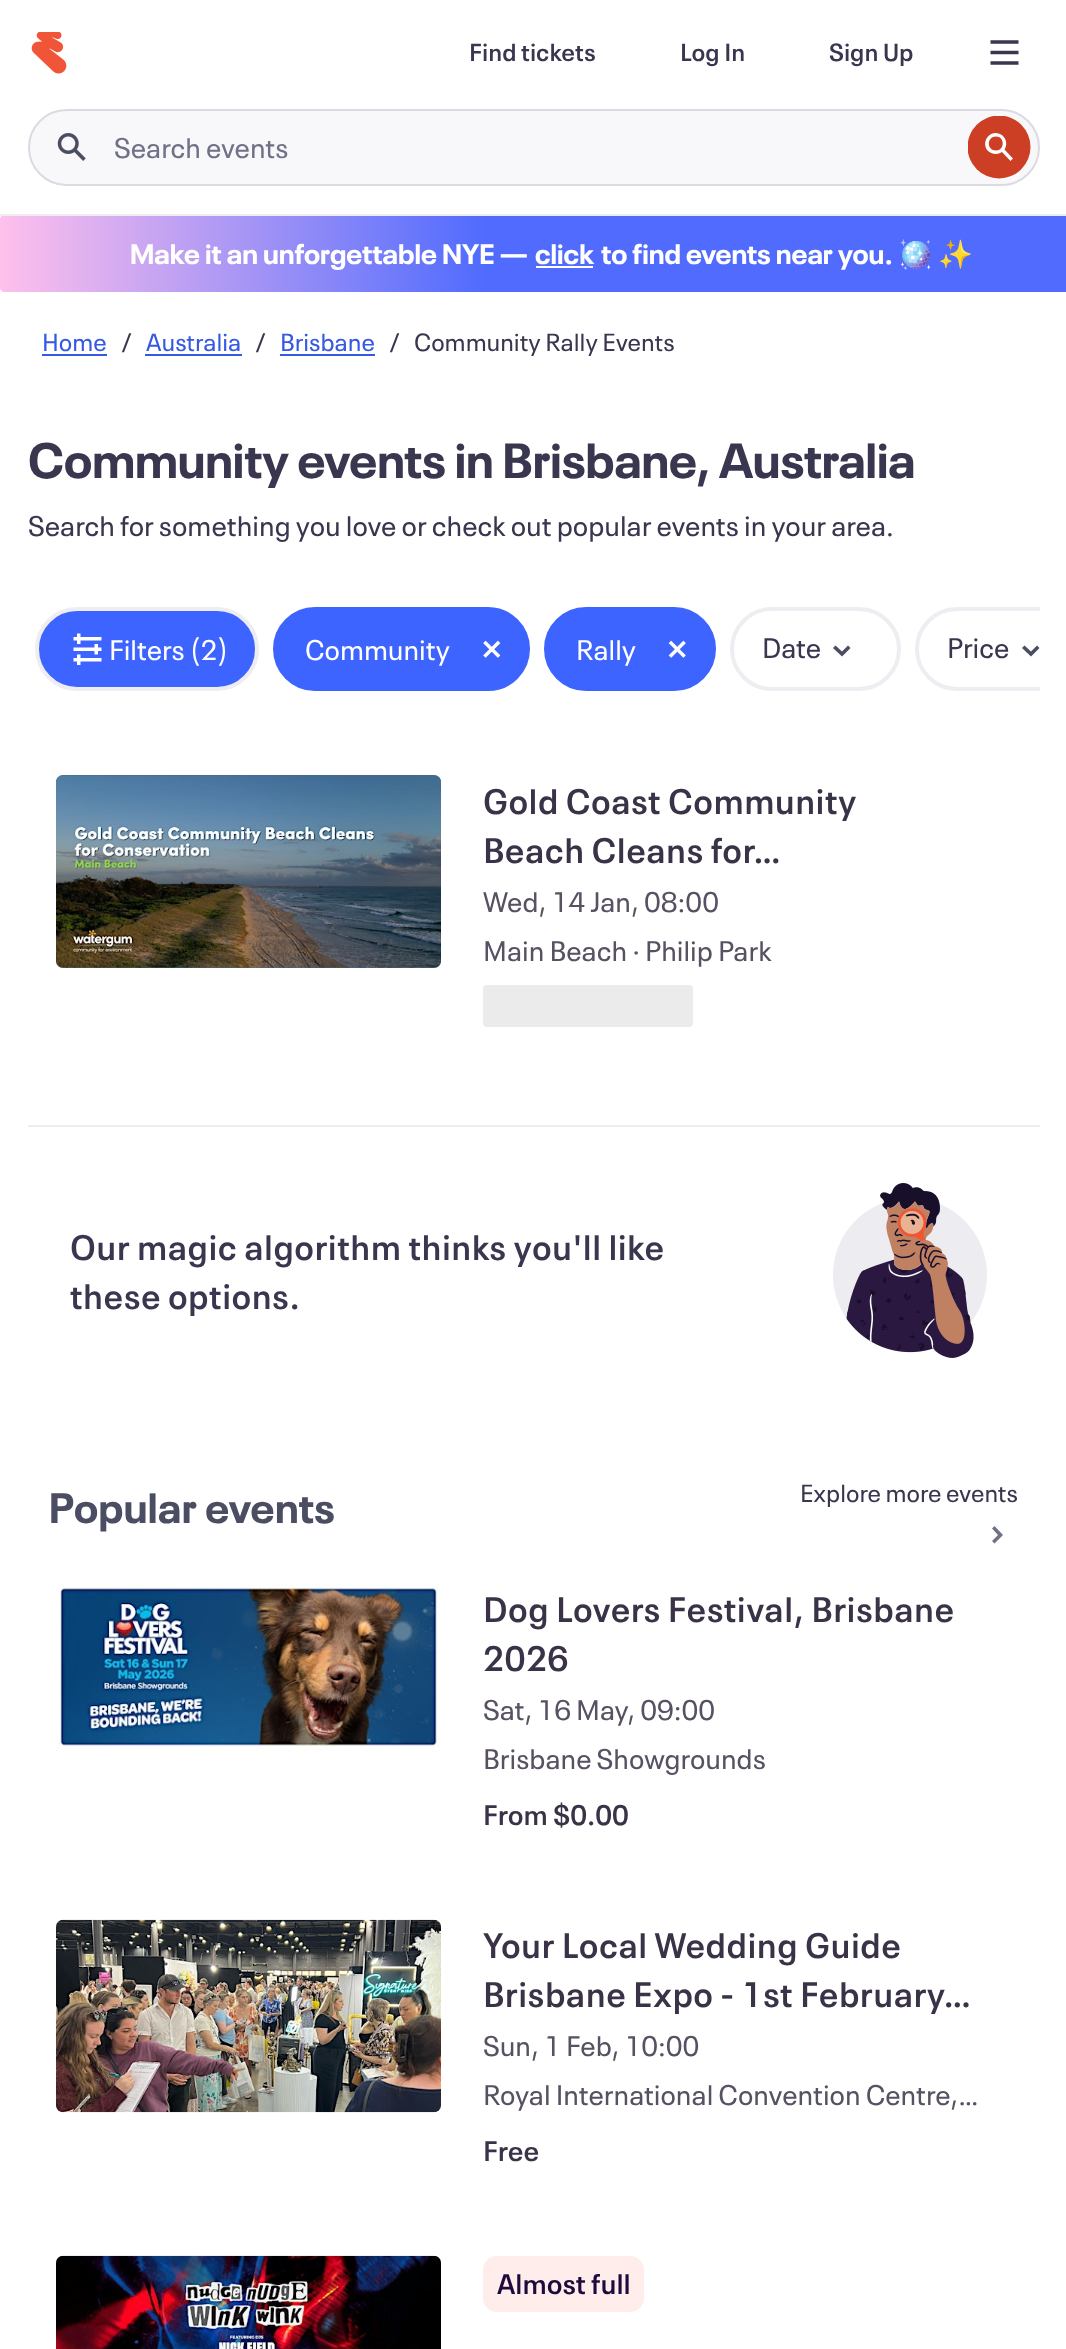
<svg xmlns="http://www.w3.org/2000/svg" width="1066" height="2349">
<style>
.a{font:600 24.5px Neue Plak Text;fill:#39364f}
.b{font:28px Neue Plak Text;fill:#6f7287}
.c{font:bold 28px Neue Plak;fill:#fff}
.d{font:bold 28px Noto Color Emoji;fill:#fff}
.e{font:24.5px Neue Plak Text;fill:#3659e3}
.f{font:24.5px Neue Plak Text;fill:#39364f}
.g{font:bold 49px Neue Plak;fill:#39364f}
.h{font:28px Neue Plak Text;fill:#39364f}
.i{font:28px Neue Plak Text;fill:#fff}
.j{font:600 35px Neue Plak Text;letter-spacing:0.45px;fill:#3a3247}
.k{font:28px Neue Plak Text;fill:#585163}
.l{font:600 35px Neue Plak Text;letter-spacing:0.45px;fill:#39364f}
.m{font:bold 42px Neue Plak;letter-spacing:0.45px;fill:#4b4d63}
.n{font:600 28px Neue Plak Text;fill:#3a3247}
.o{font:600 28px Neue Plak Text;fill:#1e0a3c}
</style>
<defs>
<linearGradient id="g1" gradientUnits="userSpaceOnUse" x1="0" y1="254" x2="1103" y2="254"><stop offset="0" stop-color="#ffc0ec"/><stop offset="0.44" stop-color="#506bfe"/><stop offset="1" stop-color="#506bfe"/></linearGradient>
<clipPath id="clip1"><path d="M968 116h63v63H968z"/></clipPath>
<clipPath id="clip2"><path d="M28 607h1012v84H28z"/></clipPath>
</defs>
<rect width="100%" height="100%" fill="#fff"/>
<path fill="url(#g1)" d="M4 215h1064v77h-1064c-2 0-4-2-4-4v-69c0-2 2-4 4-4z"/>
<path fill="#eeedf2" d="M0 214h1066v2H0z"/>
<image href="1.png" x="31" y="32" width="36" height="42"/>
<image href="2.png" x="990" y="40" width="29" height="25"/>
<rect fill="#f8f7fa" stroke="#dbdae3" stroke-width="2" x="29" y="110" width="1010" height="75" rx="37.5"/>
<image href="3.png" x="57" y="133" width="29" height="28"/>
<g clip-path="url(#clip1)">
<circle fill="#cc3f24" cx="999" cy="147" r="31.5"/>
</g>
<path fill="#fff" fill-rule="evenodd" d="M1004.5 149.5c3-4.5 2-10.5-2-14c-4-3.5-10.5-3.5-14 .5c-4 4-4.5 10-1 14.5c4 4 10 4.5 14.5 1.5l8.5 9l2.5-2.5zm-8.5 1c9 0 9-14 0-14c-9.5 0-9.5 14 0 14z"/>
<path fill="#fff" d="M536 266h57v2H536z"/>
<path fill="#3659e3" d="M42 354h65v2H42z"/>
<path fill="#3659e3" d="M145 354h97v2H145z"/>
<path fill="#3659e3" d="M280 354h95v2H280z"/>
<rect fill="#3d64ff" stroke="#eeedf2" stroke-width="4" x="37" y="609" width="220" height="80" rx="40"/>
<image href="4.png" x="73" y="633" width="29" height="32"/>
<rect fill="#3d64ff" stroke="#3d64ff" stroke-width="4" x="275" y="609" width="253" height="80" rx="40"/>
<image href="5.png" x="483" y="640" width="18" height="18"/>
<rect fill="#3d64ff" stroke="#3d64ff" stroke-width="4" x="546" y="609" width="168" height="80" rx="40"/>
<image href="6.png" x="668" y="640" width="18" height="18"/>
<rect fill="none" stroke="#eeedf2" stroke-width="4" x="732" y="609" width="167" height="80" rx="40"/>
<path fill="#4b4d63" fill-rule="evenodd" d="M833 648l9 8.5l8.5-8.5l-2.5-2.5l-6 6l-6.5-6z"/>
<g clip-path="url(#clip2)">
<rect fill="none" stroke="#eeedf2" stroke-width="4" x="917" y="609" width="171" height="80" rx="40"/>
</g>
<path fill="#4b4d63" fill-rule="evenodd" d="M1022 648l9 8.5l8.5-8.5l-2.5-2.5l-6 6l-6.5-6z"/>
<rect fill="#486a82" x="56" y="775" width="385" height="193" rx="7"/>
<image href="7.png" x="56" y="775" width="385" height="193"/>
<rect fill="#ebebeb" x="483" y="985" width="210" height="42" rx="4"/>
<path fill="#eeedf2" d="M28 1125h1012v2H28z"/>
<image href="8.png" x="833" y="1183" width="154" height="175"/>
<path fill="#6f7287" fill-rule="evenodd" d="M994.5 1543.5l8.5-8.5l-8.5-9l-2.5 2.5l6 6.5l-6 6z"/>
<image href="9.png" x="56" y="1584" width="385" height="169"/>
<image href="10.png" x="56" y="1919" width="385" height="194"/>
<image href="11.png" x="56" y="2255" width="385" height="94"/>
<rect fill="#feedea" x="483" y="2256" width="161" height="56" rx="14"/>
<text class="a" x="469" y="61">Find tickets</text>
<text class="a" x="680" y="61">Log In</text>
<text class="a" x="829" y="61">Sign Up</text>
<text class="b" x="114" y="158">Search events</text>
<text class="c" x="130" y="264">Make it an unforgettable NYE —</text>
<text class="c" x="535" y="264">click</text>
<text class="c" x="601" y="264">to find events near you.</text>
<text class="d" x="898" y="264">🪩</text>
<text class="d" x="938" y="264">✨</text>
<text class="e" x="42" y="351">Home</text>
<text class="f" x="121" y="351">/</text>
<text class="e" x="146" y="351">Australia</text>
<text class="f" x="255" y="351">/</text>
<text class="e" x="280" y="351">Brisbane</text>
<text class="f" x="389" y="351">/</text>
<text class="f" x="414" y="351">Community Rally Events</text>
<text class="g" x="28" y="478">Community events in Brisbane, Australia</text>
<text class="h" x="28" y="536">Search for something you love or check out popular events in your area.</text>
<text class="i" x="109" y="660">Filters (2)</text>
<text class="i" x="305" y="660">Community</text>
<text class="i" x="576" y="660">Rally</text>
<text class="h" x="762" y="658">Date</text>
<text class="h" x="947" y="658">Price</text>
<text class="j" x="483" y="814">Gold Coast Community</text>
<text class="j" x="483" y="863">Beach Cleans for…</text>
<text class="k" x="483" y="912">Wed, 14 Jan, 08:00</text>
<text class="k" x="483" y="961">Main Beach · Philip Park</text>
<text class="l" x="70" y="1260">Our magic algorithm thinks you'll like</text>
<text class="l" x="70" y="1309">these options.</text>
<text class="m" x="49" y="1523">Popular events</text>
<text class="f" x="800" y="1502">Explore more events</text>
<text class="j" x="483" y="1622">Dog Lovers Festival, Brisbane</text>
<text class="j" x="483" y="1671">2026</text>
<text class="k" x="483" y="1720">Sat, 16 May, 09:00</text>
<text class="k" x="483" y="1769">Brisbane Showgrounds</text>
<text class="n" x="483" y="1825">From $0.00</text>
<text class="j" x="483" y="1958">Your Local Wedding Guide</text>
<text class="j" x="483" y="2007">Brisbane Expo - 1st February…</text>
<text class="k" x="483" y="2056">Sun, 1 Feb, 10:00</text>
<text class="k" x="483" y="2105">Royal International Convention Centre,…</text>
<text class="n" x="483" y="2161">Free</text>
<text class="o" x="497" y="2294">Almost full</text>
</svg>
